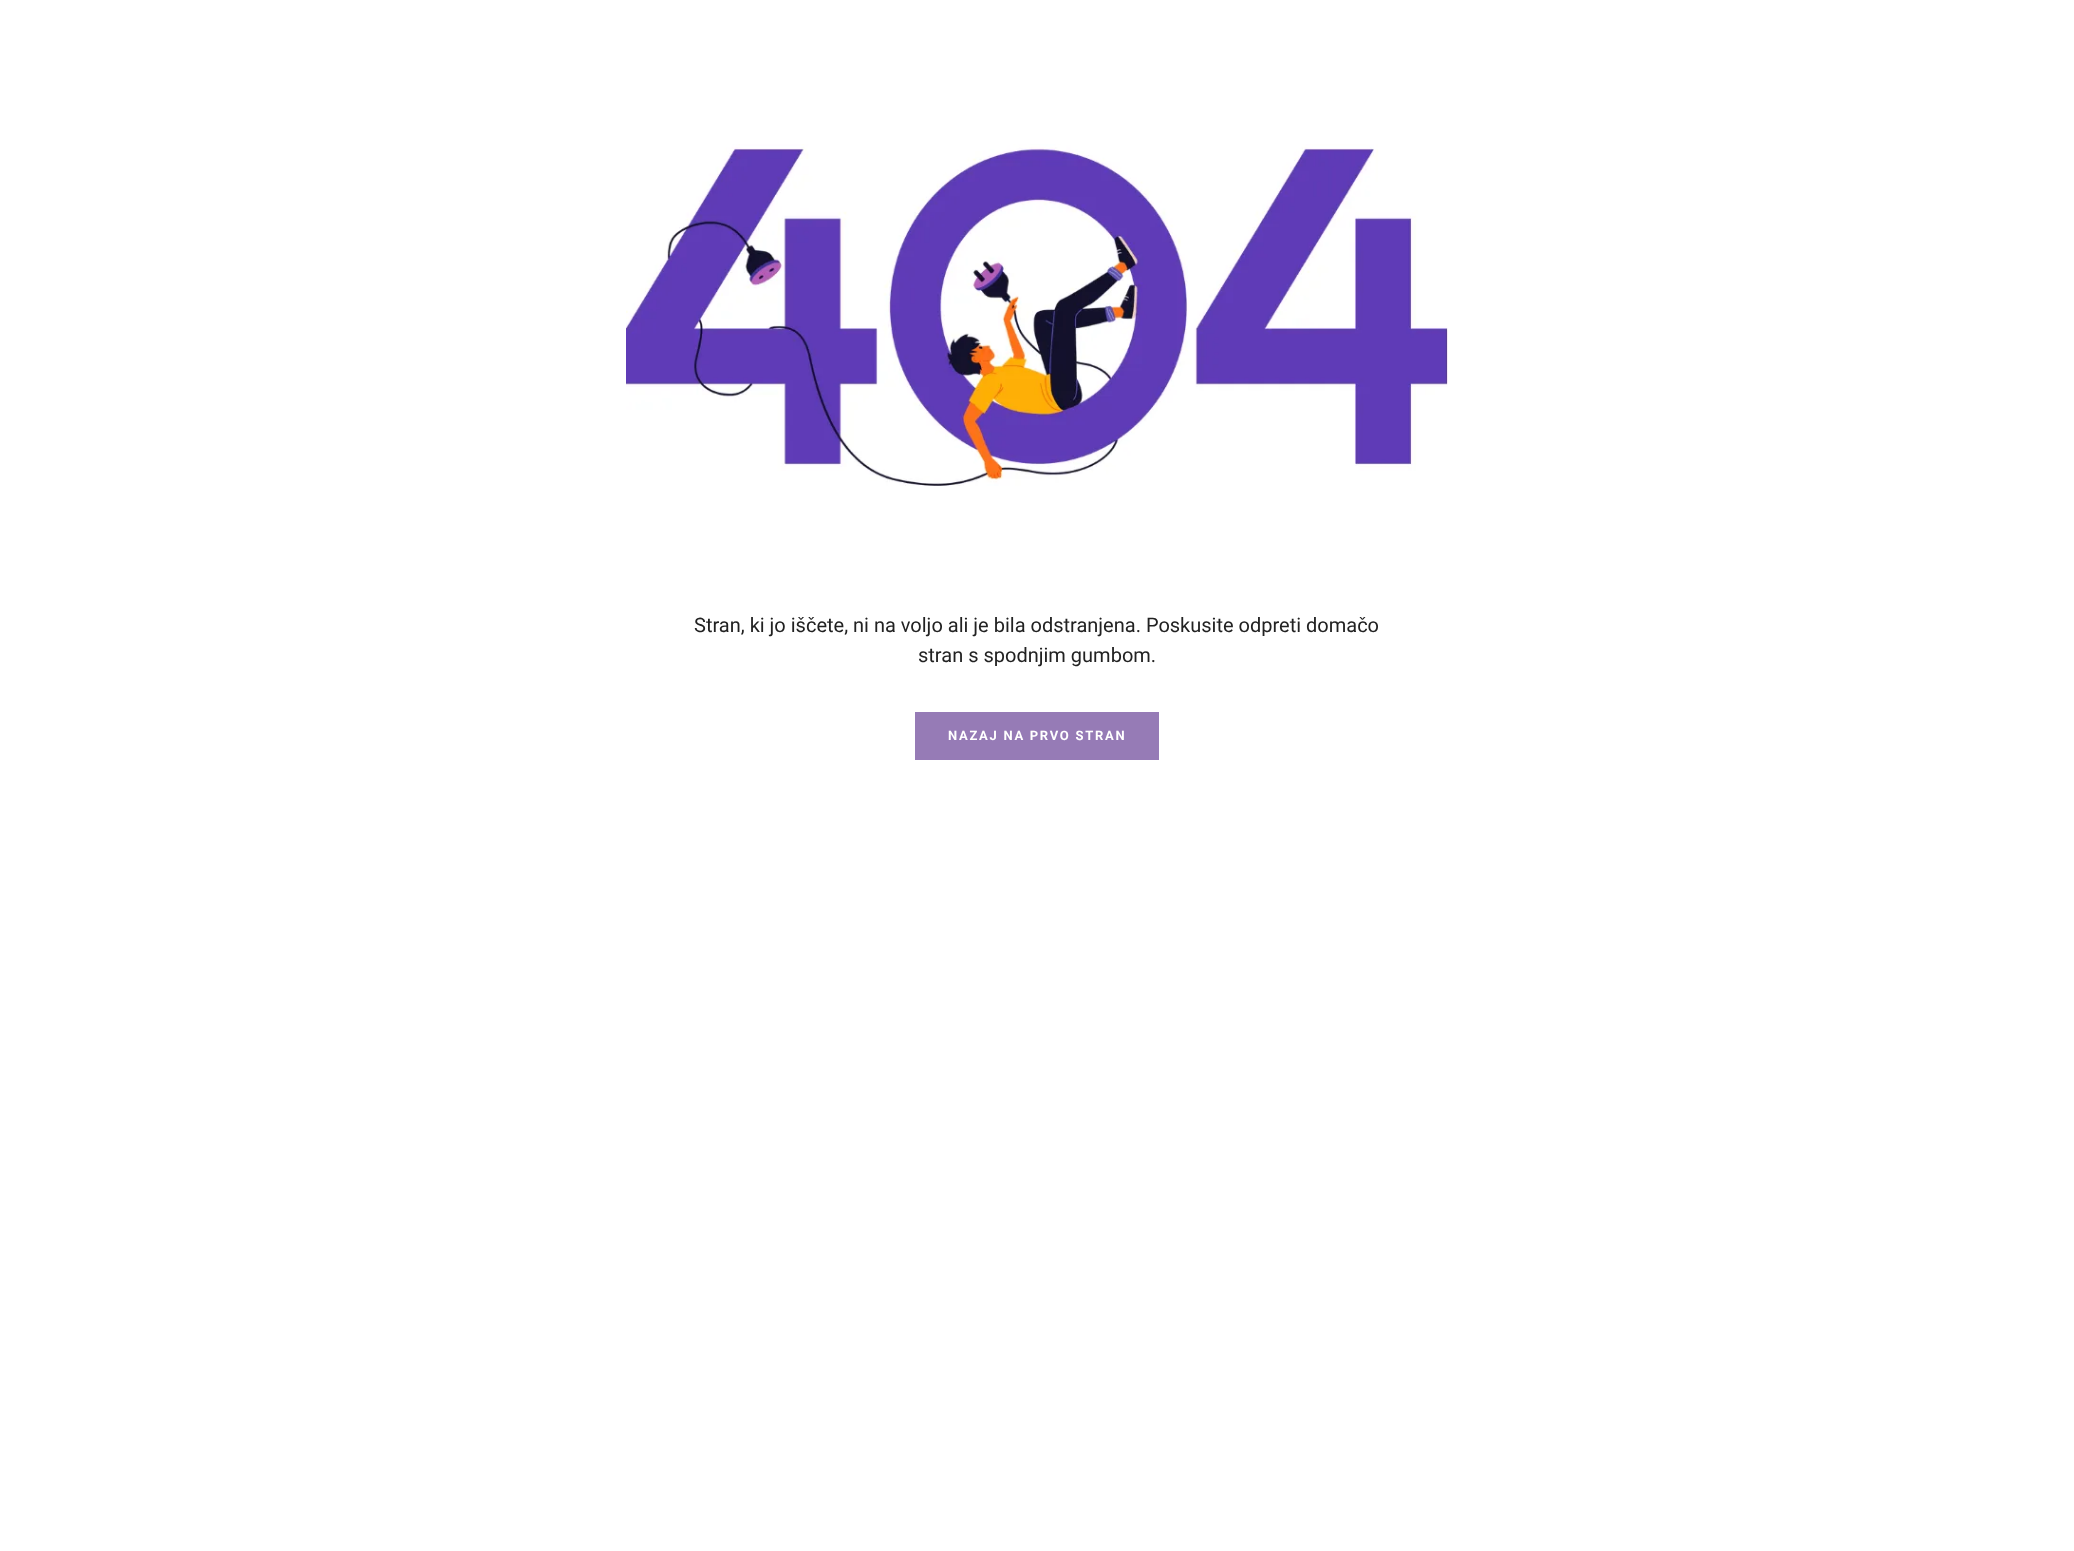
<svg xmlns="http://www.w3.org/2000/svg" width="2074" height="1551">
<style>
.a{font:20px Roboto;fill:#222}
.b{font:bold 13px Roboto;letter-spacing:1.7px;fill:#fff}
</style>
<rect width="100%" height="100%" fill="#fff"/>
<image href="1.png" x="626" y="144" width="822" height="342"/>
<path fill="#967bb6" d="M915 712h244v48H915z"/>
<text class="a" x="694" y="632">Stran, ki jo iščete, ni na voljo ali je bila odstranjena. Poskusite odpreti domačo</text>
<text class="a" x="918" y="662">stran s spodnjim gumbom.</text>
<text class="b" x="948" y="740">NAZAJ NA PRVO STRAN</text>
</svg>
